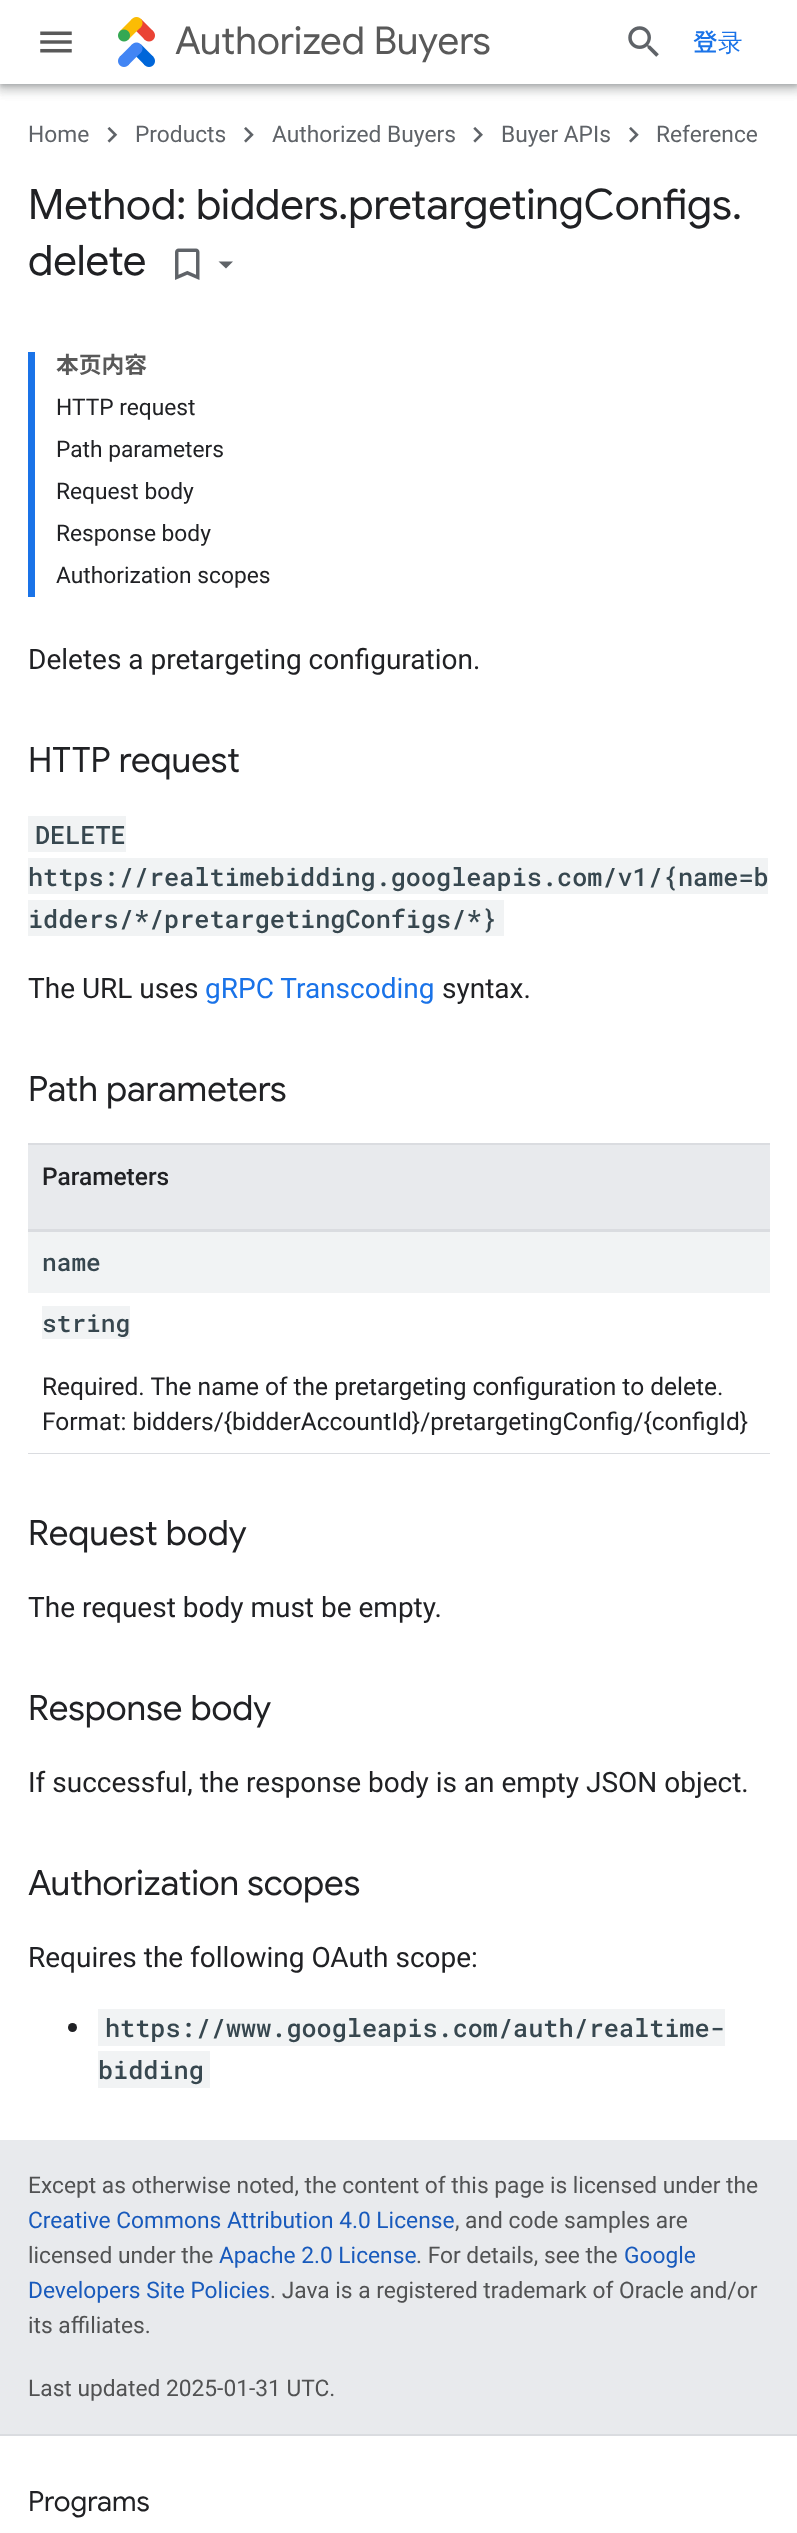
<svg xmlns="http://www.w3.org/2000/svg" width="797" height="2533">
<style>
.a{font:38.5px Google Sans;fill:#595959}
.b{font:500 24.5px Noto Sans JP;fill:#1a73e8}
.c{font:500 24.5px WenQuanYi Zen Hei;fill:#1a73e8}
.d{font:22.75px Roboto;fill:#5f6368}
.e{font:42px Google Sans;fill:#202124}
.f{font:bold 22.75px Noto Sans JP;fill:#595959}
.g{font:22.75px Roboto;fill:#202124}
.h{font:28px Roboto;fill:#202124}
.i{font:35px Google Sans;fill:#202124}
.j{font:500 25.2px Roboto Mono;fill:#37474f}
.k{font:28px Roboto;fill:#1a73e8}
.l{font:500 24.5px Roboto;fill:#202124}
.m{font:500 24.5px Roboto Mono;fill:#37474f}
.n{font:24.5px Roboto;fill:#202124}
.o{font:22.75px Roboto;fill:#515253}
.p{font:22.75px Roboto;fill:#185abc}
.q{font:28px Google Sans;fill:#202124}
</style>
<rect width="100%" height="100%" fill="#e8eaed"/>
<path fill="#fff" d="M0 84h797v2056H0z"/>
<path fill="#3c404326" filter="blur(5px)" d="M-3 0h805v91H-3z"/>
<path fill="#3c40434d" filter="blur(2px)" d="M0 2h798v84H0z"/>
<path fill="#3c404326" filter="blur(5px)" d="M-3 84h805v7H-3z"/>
<path fill="#fff" d="M0 0h797v84H0z"/>
<image href="1.png" x="40" y="31" width="32" height="22"/>
<image href="2.png" x="118" y="17" width="37" height="50"/>
<image href="3.png" x="628" y="26" width="31" height="31"/>
<image href="4.png" x="107" y="127" width="11" height="16"/>
<image href="5.png" x="244" y="127" width="10" height="16"/>
<image href="6.png" x="473" y="127" width="10" height="16"/>
<image href="5.png" x="629" y="127" width="10" height="16"/>
<image href="7.png" x="175" y="248" width="25" height="32"/>
<path fill="#5f6368" d="M218.5 261.5h14.5l-7 7z"/>
<path fill="#1a73e8" d="M28 352h7v245H28z"/>
<path fill="#f1f3f4" d="M28 816h98v36H28z"/>
<path fill="#f1f3f4" d="M28 858h740v36H28z"/>
<path fill="#f1f3f4" d="M28 900h476v36H28z"/>
<path fill="#dadce0" d="M28 1143h742v2H28z"/>
<path fill="#dadce0" d="M28 1229h742v3H28z"/>
<path fill="#e8eaed" d="M28 1145h742v84H28z"/>
<path fill="#dadce0" d="M28 1453h742v1H28z"/>
<path fill="#f1f3f4" d="M28 1232h742v61H28z"/>
<path fill="#f1f3f4" d="M42 1306h88v33H42z"/>
<circle fill="#202124" cx="72.5" cy="2027.5" r="4.5"/>
<path fill="#f1f3f4" d="M98 2009h627v37H98z"/>
<path fill="#f1f3f4" d="M98 2051h112v37H98z"/>
<path fill="#dadce0" d="M0 2434h797v2H0z"/>
<path fill="#fff" d="M0 2436h797v97H0z"/>
<text class="a" x="175" y="54">Authorized Buyers</text>
<text class="b" x="693" y="51">登</text>
<text class="c" x="718" y="51">录</text>
<text class="d" x="28" y="142">Home</text>
<text class="d" x="135" y="142">Products</text>
<text class="d" x="272" y="142">Authorized Buyers</text>
<text class="d" x="501" y="142">Buyer APIs</text>
<text class="d" x="656" y="142">Reference</text>
<text class="e" x="28" y="219">Method: bidders.pretargetingConfigs.</text>
<text class="e" x="28" y="275">delete</text>
<text class="f" x="56" y="373">本页内容</text>
<text class="g" x="56" y="415">HTTP request</text>
<text class="g" x="56" y="457">Path parameters</text>
<text class="g" x="56" y="499">Request body</text>
<text class="g" x="56" y="541">Response body</text>
<text class="g" x="56" y="583">Authorization scopes</text>
<text class="h" x="28" y="669">Deletes a pretargeting configuration.</text>
<text class="i" x="28" y="772">HTTP request</text>
<text class="j" x="35" y="844">DELETE</text>
<text class="j" x="28" y="886">https://realtimebidding.googleapis.com/v1/{name=b</text>
<text class="j" x="28" y="928">idders/*/pretargetingConfigs/*}</text>
<text class="h" x="28" y="998">The URL uses</text>
<text class="k" x="205" y="998">gRPC Transcoding</text>
<text class="h" x="442" y="998">syntax.</text>
<text class="i" x="28" y="1101">Path parameters</text>
<text class="l" x="42" y="1185">Parameters</text>
<text class="m" x="42" y="1271">name</text>
<text class="m" x="42" y="1332">string</text>
<text class="n" x="42" y="1395">Required. The name of the pretargeting configuration to delete.</text>
<text class="n" x="42" y="1430">Format: bidders/{bidderAccountId}/pretargetingConfig/{configId}</text>
<text class="i" x="28" y="1545">Request body</text>
<text class="h" x="28" y="1617">The request body must be empty.</text>
<text class="i" x="28" y="1720">Response body</text>
<text class="h" x="28" y="1792">If successful, the response body is an empty JSON object.</text>
<text class="i" x="28" y="1895">Authorization scopes</text>
<text class="h" x="28" y="1967">Requires the following OAuth scope:</text>
<text class="j" x="105" y="2037">https://www.googleapis.com/auth/realtime-</text>
<text class="j" x="98" y="2079">bidding</text>
<text class="o" x="28" y="2193">Except as otherwise noted, the content of this page is licensed under the</text>
<text class="p" x="28" y="2228">Creative Commons Attribution 4.0 License</text>
<text class="o" x="455" y="2228">, and code samples are</text>
<text class="o" x="28" y="2263">licensed under the</text>
<text class="p" x="219" y="2263">Apache 2.0 License</text>
<text class="o" x="416" y="2263">. For details, see the</text>
<text class="p" x="624" y="2263">Google</text>
<text class="p" x="28" y="2298">Developers Site Policies</text>
<text class="o" x="270" y="2298">. Java is a registered trademark of Oracle and/or</text>
<text class="o" x="28" y="2333">its affiliates.</text>
<text class="o" x="28" y="2396">Last updated 2025-01-31 UTC.</text>
<text class="q" x="28" y="2511">Programs</text>
</svg>
